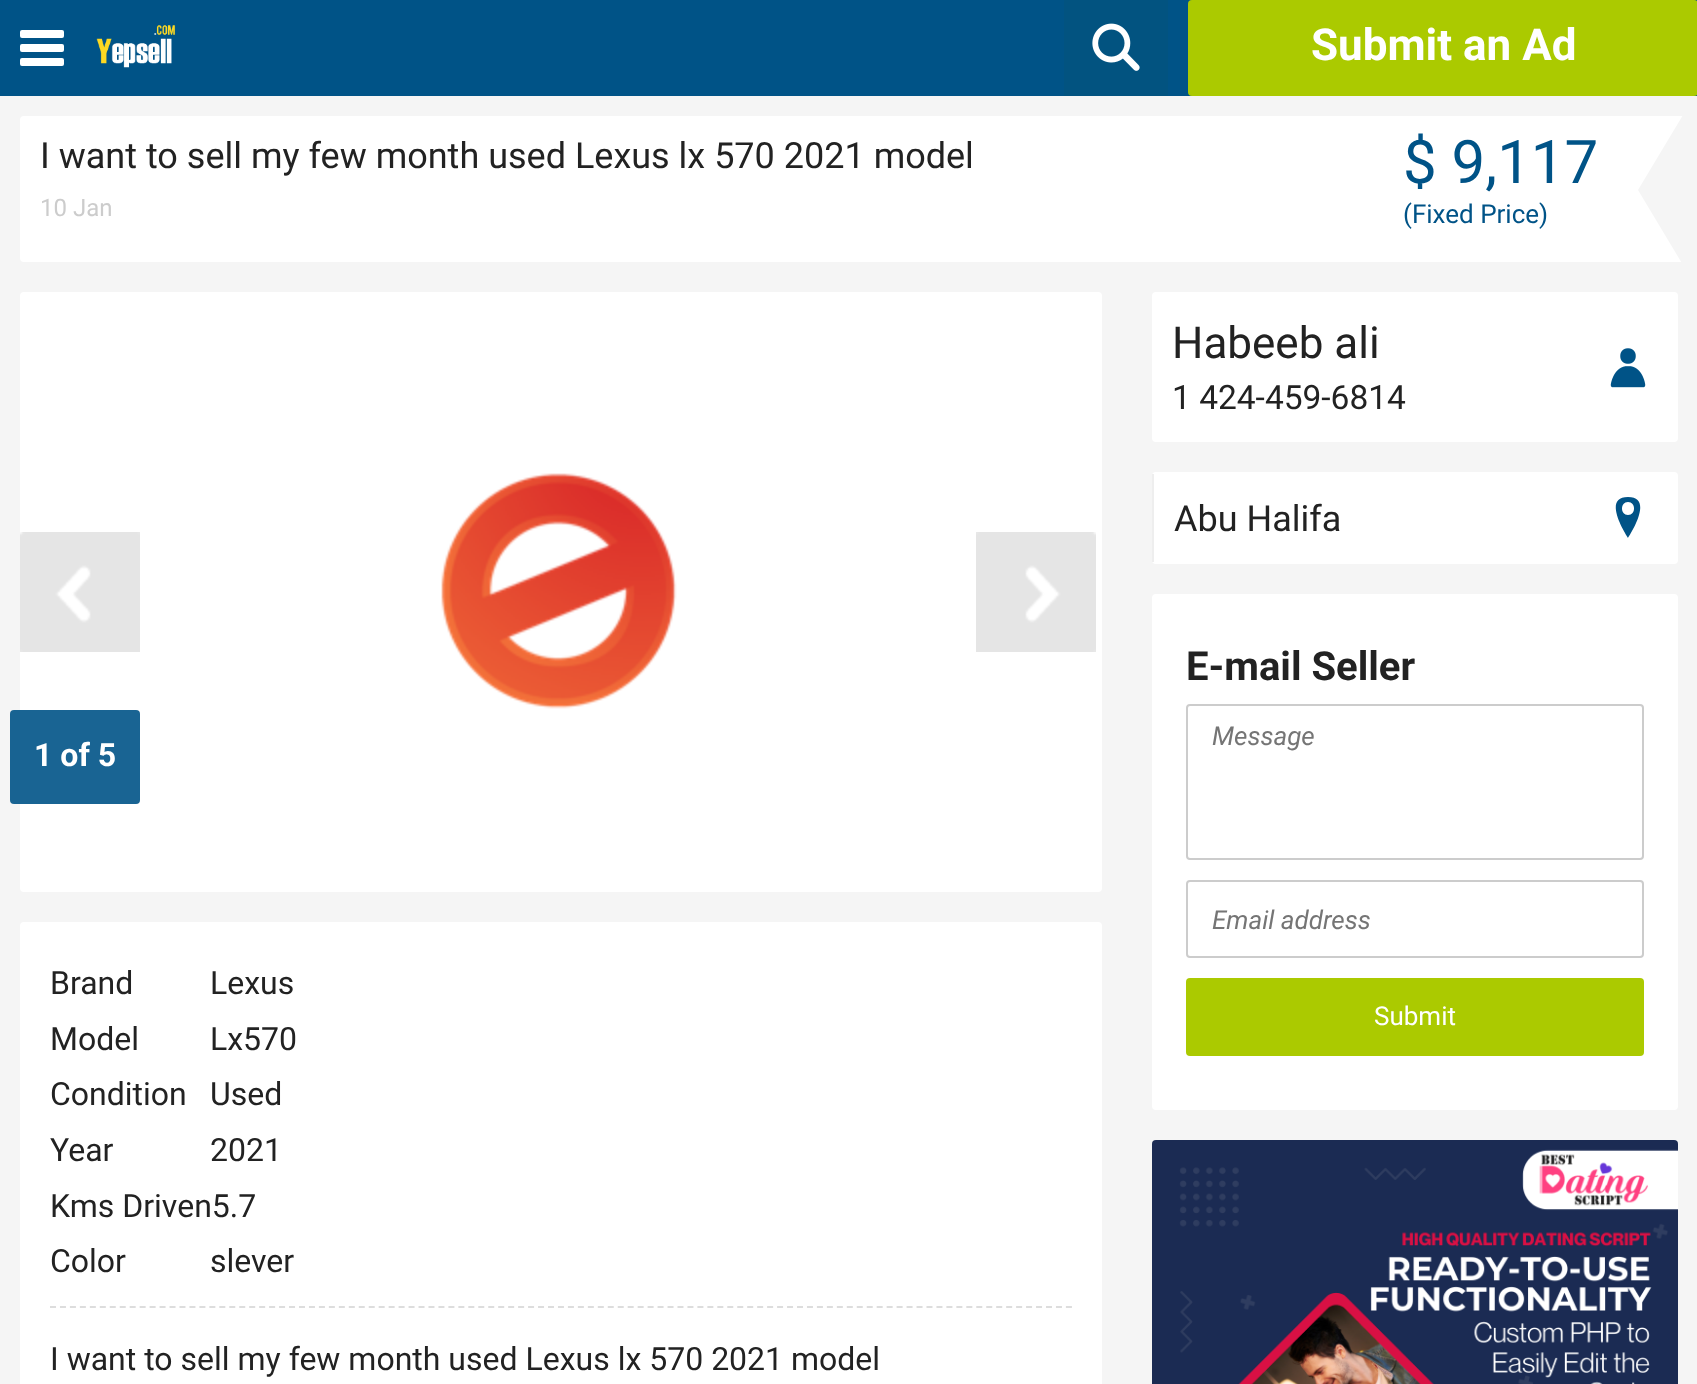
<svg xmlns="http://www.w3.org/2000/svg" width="1697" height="1384">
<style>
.a{font:bold 44px Roboto;fill:#fff}
.b{font:36px Roboto;fill:#222}
.c{font:24px Roboto;fill:#ccc}
.d{font:60px Roboto;fill:#005387}
.e{font:26px Roboto;fill:#005387}
.f{font:bold 32px Roboto;fill:#fff}
.g{font:32px Roboto;fill:#222}
.h{font:44px Roboto;fill:#222}
.i{font:33.5px Roboto;fill:#222}
.j{font:bold 40px Roboto;fill:#222}
.k{font:italic 26px Roboto;fill:#757575}
.l{font:26px Roboto;fill:#fff}
</style>
<rect width="100%" height="100%" fill="#f5f5f5"/>
<rect fill="#fff" x="20" y="116" width="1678" height="146" rx="4"/>
<path fill="#f5f5f5" d="M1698 90v200l-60-100z"/>
<path fill="#005387" d="M0 0h1697v96H0z"/>
<rect fill="#fff" x="20" y="30" width="44" height="8" rx="2"/>
<rect fill="#fff" x="20" y="44" width="44" height="8" rx="2"/>
<rect fill="#fff" x="20" y="58" width="44" height="8" rx="2"/>
<image href="1.png" x="96" y="25" width="80" height="43"/>
<path fill="#025380" d="M1064 0h104v96H1064z"/>
<image href="2.png" x="1092" y="23" width="48" height="48"/>
<rect fill="#abca00" x="1188" width="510" height="96" rx="4"/>
<rect fill="#fff" x="20" y="292" width="1082" height="600" rx="4"/>
<image href="3.png" x="20" y="532" width="120" height="120"/>
<image href="4.png" x="441" y="473" width="236" height="236"/>
<image href="5.png" x="976" y="532" width="120" height="120"/>
<rect fill="#005387e6" x="10" y="710" width="130" height="94" rx="4"/>
<rect fill="#fff" x="20" y="922" width="1082" height="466" rx="4"/>
<path fill="none" stroke="#ddd" stroke-width="2" stroke-dasharray="6 3.96" d="M50 1307h1022"/>
<rect fill="#fff" x="1152" y="292" width="526" height="150" rx="4"/>
<image href="6.png" x="1610" y="348" width="36" height="40"/>
<rect fill="#fff" x="1152" y="472" width="526" height="92" rx="4"/>
<path fill="#eee" d="M1152 474h2v88H1152z"/>
<path fill="#005387" d="M1628 497c-27 0-1 39 0 41c1-2 27-41 0-41zm0 18c-8 0-8-13 0-13c8 0 8 13 0 13z"/>
<rect fill="#fff" x="1152" y="594" width="526" height="516" rx="4"/>
<rect fill="none" stroke="#ccc" stroke-width="2" x="1187" y="705" width="456" height="154" rx="3"/>
<rect fill="none" stroke="#ccc" stroke-width="2" x="1187" y="881" width="456" height="76" rx="3"/>
<rect fill="#abca00" x="1186" y="978" width="458" height="78" rx="4"/>
<image href="7.png" x="1152" y="1140" width="526" height="244"/>
<text class="a" x="1311" y="60">Submit an Ad</text>
<text class="b" x="40" y="168">I want to sell my few month used Lexus lx 570 2021 model</text>
<text class="c" x="40" y="216">10 Jan</text>
<text class="d" x="1403" y="183">$ 9,117</text>
<text class="e" x="1403" y="223">(Fixed Price)</text>
<text class="f" x="34" y="766">1 of 5</text>
<text class="g" x="50" y="994">Brand</text>
<text class="g" x="210" y="994">Lexus</text>
<text class="g" x="50" y="1050">Model</text>
<text class="g" x="210" y="1050">Lx570</text>
<text class="g" x="50" y="1105">Condition</text>
<text class="g" x="210" y="1105">Used</text>
<text class="g" x="50" y="1161">Year</text>
<text class="g" x="210" y="1161">2021</text>
<text class="g" x="50" y="1217">Kms Driven5.7</text>
<text class="g" x="50" y="1272">Color</text>
<text class="g" x="210" y="1272">slever</text>
<text class="g" x="50" y="1370">I want to sell my few month used Lexus lx 570 2021 model</text>
<text class="h" x="1172" y="358">Habeeb ali</text>
<text class="i" x="1172" y="409">1 424-459-6814</text>
<text class="b" x="1174" y="531">Abu Halifa</text>
<text class="j" x="1186" y="680">E-mail Seller</text>
<text class="k" x="1212" y="745">Message</text>
<text class="k" x="1212" y="929">Email address</text>
<text class="l" x="1374" y="1025">Submit</text>
</svg>
